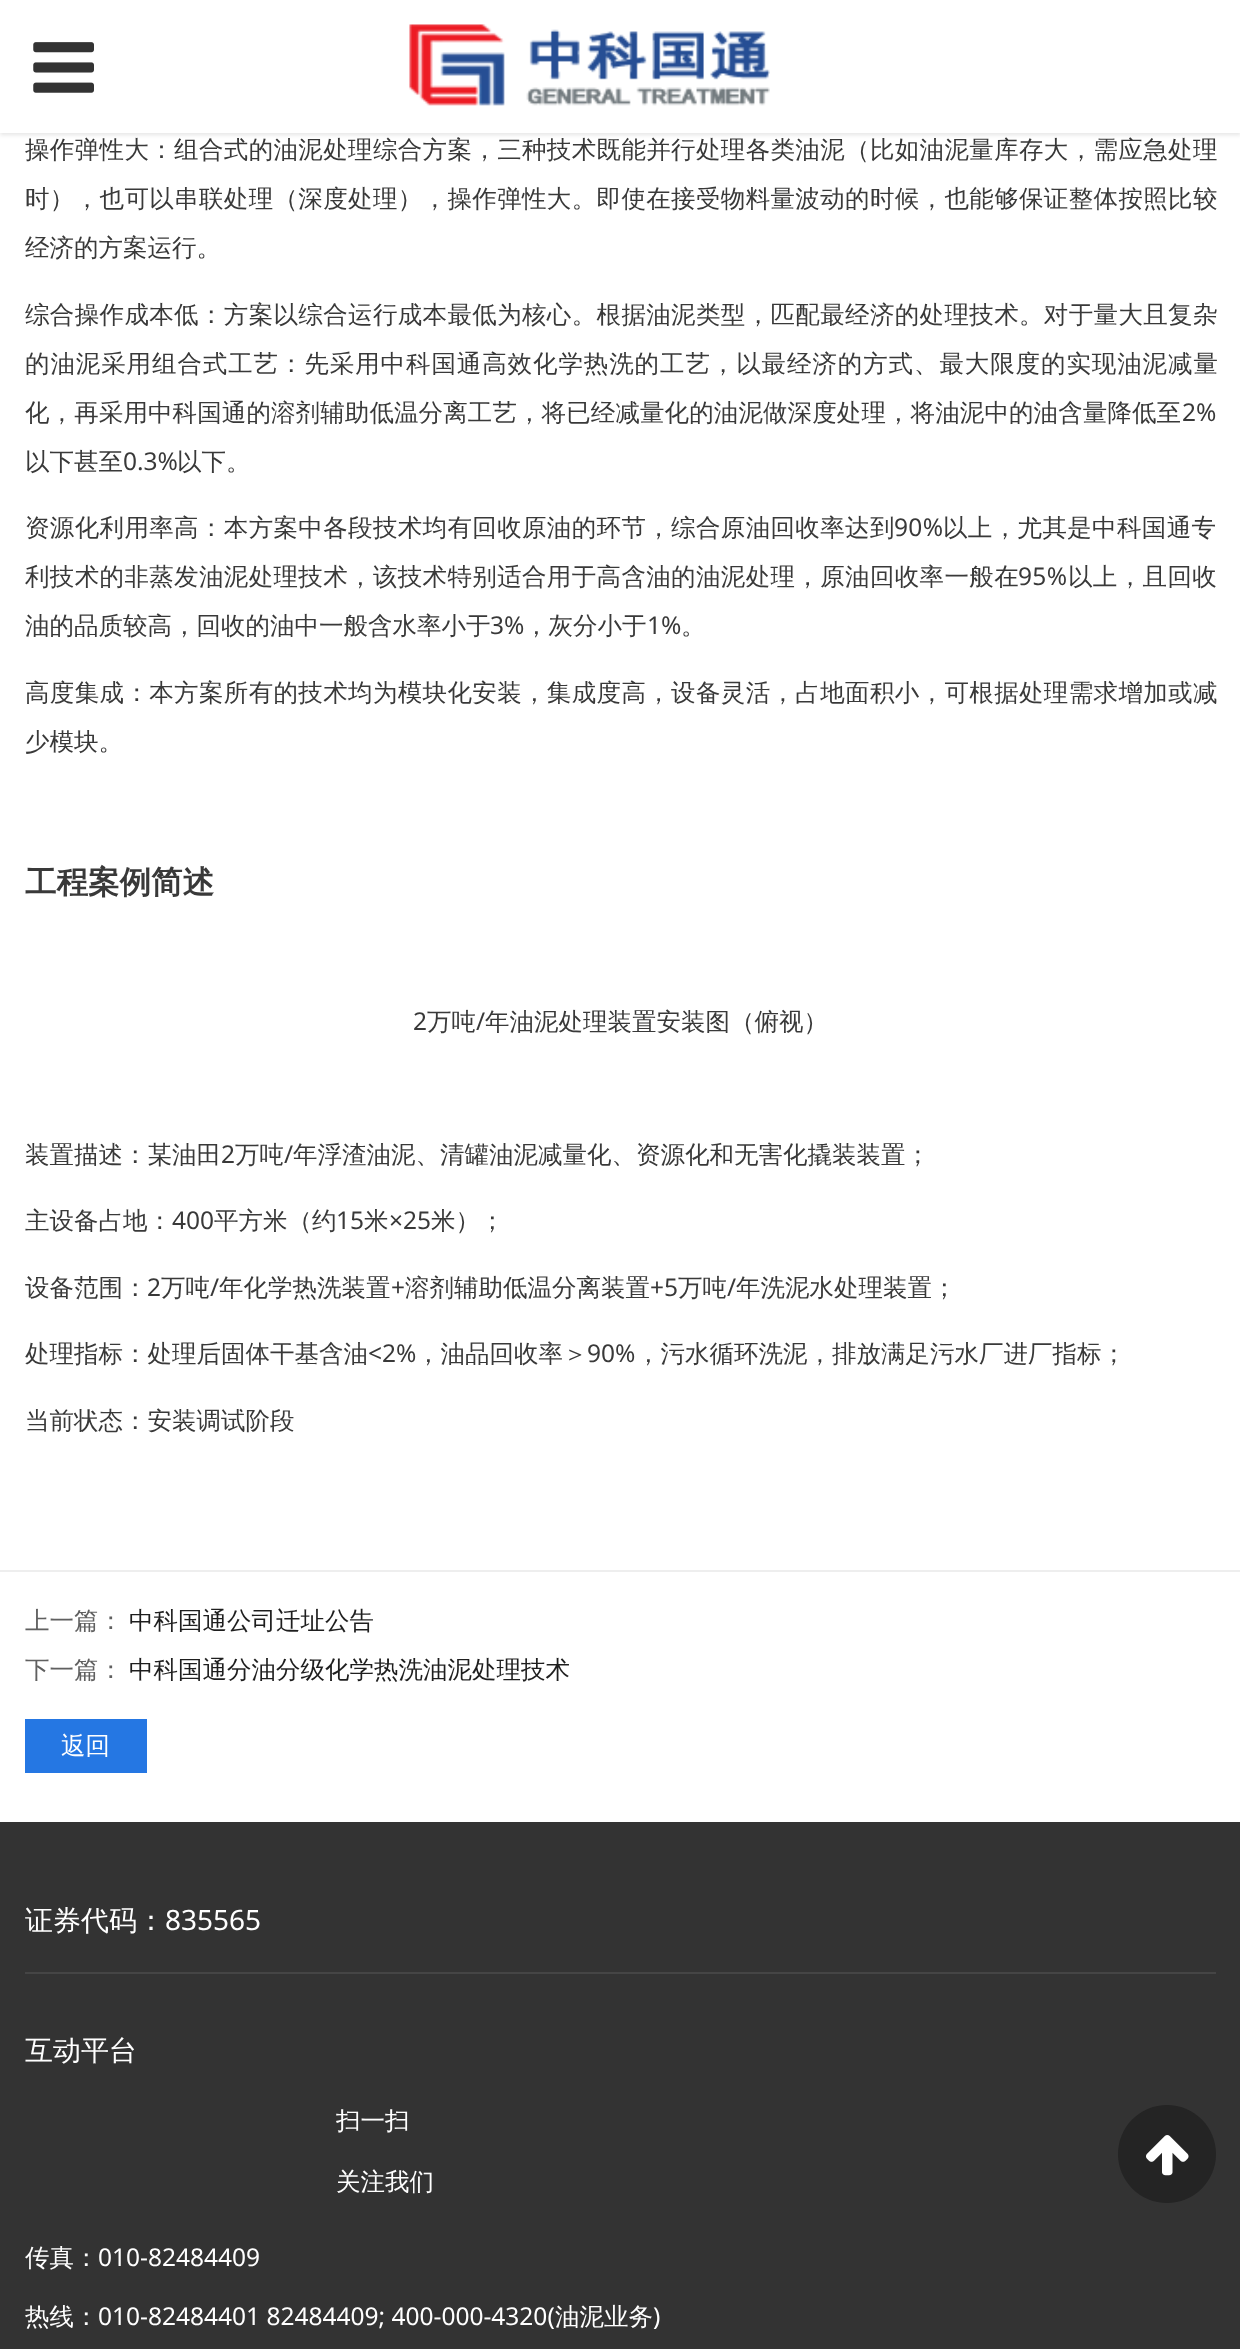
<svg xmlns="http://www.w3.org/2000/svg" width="1240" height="2349">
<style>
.a{font:500 24.5px WenQuanYi Zen Hei;letter-spacing:0.35px;fill:#393939}
.b{font:500 24.5px WenQuanYi Zen Hei;fill:#393939}
.c{font:500 24.5px WenQuanYi Zen Hei;letter-spacing:0.9px;fill:#393939}
.d{font:500 24.5px WenQuanYi Zen Hei;letter-spacing:0.1px;fill:#393939}
.e{font:24.5px Noto Sans;letter-spacing:0.1px;fill:#393939}
.f{font:24.5px Noto Sans;fill:#393939}
.g{font:24.5px Noto Sans;letter-spacing:0.35px;fill:#393939}
.h{font:bold 31.5px WenQuanYi Zen Hei;fill:#393939}
.i{font:500 24.5px WenQuanYi Zen Hei;fill:#606060}
.j{font:500 24.5px WenQuanYi Zen Hei;fill:#1e1e1e}
.k{font:500 24.5px WenQuanYi Zen Hei;fill:#fff}
.l{font:500 28px WenQuanYi Zen Hei;fill:#fff}
.m{font:28px Noto Sans;fill:#fff}
.n{font:24.5px Noto Sans;fill:#fff}
</style>
<rect width="100%" height="100%" fill="#fff"/>
<path fill="#0000001a" filter="blur(2px)" d="M0 2h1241v133H0z"/>
<path fill="#fff" d="M0 0h1240v133H0z"/>
<image href="1.png" x="33" y="42" width="61" height="51"/>
<image href="2.png" x="409" y="24" width="361" height="82"/>
<path fill="#eee" d="M0 1570h1240v2H0z"/>
<path fill="#2577e3" d="M25 1719h122v54H25z"/>
<path fill="#333" d="M0 1822h1240v527H0z"/>
<path fill="#454545" d="M25 1972h1191v2H25z"/>
<circle fill="#242424" cx="1167" cy="2154" r="49"/>
<image href="3.png" x="1146" y="2135" width="43" height="41"/>
<text class="a" x="25" y="158">操作弹性大：组合式的油泥处理综合方案，三种技术既能并行处理各类油泥（比如油泥量库存大，需应急处理</text>
<text class="a" x="25" y="207">时），也可以串联处理（深度处理），操作弹性大。即使在接受物料量波动的时候，也能够保证整体按照比较</text>
<text class="b" x="25" y="256">经济的方案运行。</text>
<text class="a" x="25" y="323">综合操作成本低：方案以综合运行成本最低为核心。根据油泥类型，匹配最经济的处理技术。对于量大且复杂</text>
<text class="c" x="25" y="372">的油泥采用组合式工艺：先采用中科国通高效化学热洗的工艺，以最经济的方式、最大限度的实现油泥减量</text>
<text class="d" x="25" y="421">化，再采用中科国通的溶剂辅助低温分离工艺，将已经减量化的油泥做深度处理，将油泥中的油含量降低至</text>
<text class="e" x="1182" y="421">2%</text>
<text class="b" x="25" y="470">以下甚至</text>
<text class="f" x="123" y="470">0.3%</text>
<text class="b" x="177" y="470">以下。</text>
<text class="a" x="25" y="536">资源化利用率高：本方案中各段技术均有回收原油的环节，综合原油回收率达到</text>
<text class="g" x="894" y="536">90%</text>
<text class="a" x="943" y="536">以上，尤其是中科国通专</text>
<text class="a" x="25" y="585">利技术的非蒸发油泥处理技术，该技术特别适合用于高含油的油泥处理，原油回收率一般在</text>
<text class="g" x="1018" y="585">95%</text>
<text class="a" x="1068" y="585">以上，且回收</text>
<text class="b" x="25" y="634">油的品质较高，回收的油中一般含水率小于</text>
<text class="f" x="490" y="634">3%</text>
<text class="b" x="524" y="634">，灰分小于</text>
<text class="f" x="647" y="634">1%</text>
<text class="b" x="681" y="634">。</text>
<text class="a" x="25" y="701">高度集成：本方案所有的技术均为模块化安装，集成度高，设备灵活，占地面积小，可根据处理需求增加或减</text>
<text class="b" x="25" y="750">少模块。</text>
<text class="h" x="25" y="893">工程案例简述</text>
<text class="f" x="413" y="1030">2</text>
<text class="b" x="427" y="1030">万吨</text>
<text class="f" x="476" y="1030">/</text>
<text class="b" x="485" y="1030">年油泥处理装置安装图（俯视）</text>
<text class="b" x="25" y="1163">装置描述：某油田</text>
<text class="f" x="221" y="1163">2</text>
<text class="b" x="235" y="1163">万吨</text>
<text class="f" x="284" y="1163">/</text>
<text class="b" x="293" y="1163">年浮渣油泥、清罐油泥减量化、资源化和无害化撬装装置；</text>
<text class="b" x="25" y="1229">主设备占地：</text>
<text class="f" x="172" y="1229">400</text>
<text class="b" x="214" y="1229">平方米（约</text>
<text class="f" x="336" y="1229">15</text>
<text class="b" x="364" y="1229">米</text>
<text class="f" x="389" y="1229">×25</text>
<text class="b" x="431" y="1229">米）；</text>
<text class="b" x="25" y="1296">设备范围：</text>
<text class="f" x="147" y="1296">2</text>
<text class="b" x="161" y="1296">万吨</text>
<text class="f" x="210" y="1296">/</text>
<text class="b" x="219" y="1296">年化学热洗装置</text>
<text class="f" x="391" y="1296">+</text>
<text class="b" x="405" y="1296">溶剂辅助低温分离装置</text>
<text class="f" x="650" y="1296">+5</text>
<text class="b" x="678" y="1296">万吨</text>
<text class="f" x="727" y="1296">/</text>
<text class="b" x="736" y="1296">年洗泥水处理装置；</text>
<text class="b" x="25" y="1362">处理指标：处理后固体干基含油</text>
<text class="f" x="368" y="1362">&lt;2%</text>
<text class="b" x="416" y="1362">，油品回收率＞</text>
<text class="f" x="587" y="1362">90%</text>
<text class="b" x="636" y="1362">，污水循环洗泥，排放满足污水厂进厂指标；</text>
<text class="b" x="25" y="1429">当前状态：安装调试阶段</text>
<text class="i" x="25" y="1629">上一篇：</text>
<text class="j" x="129" y="1629">中科国通公司迁址公告</text>
<text class="i" x="25" y="1678">下一篇：</text>
<text class="j" x="129" y="1678">中科国通分油分级化学热洗油泥处理技术</text>
<text class="k" x="61" y="1754">返回</text>
<text class="l" x="25" y="1930">证券代码：</text>
<text class="m" x="165" y="1930">835565</text>
<text class="l" x="25" y="2060">互动平台</text>
<text class="k" x="336" y="2129">扫一扫</text>
<text class="k" x="336" y="2190">关注我们</text>
<text class="k" x="25" y="2266">传真：</text>
<text class="n" x="98" y="2266">010-82484409</text>
<text class="k" x="25" y="2325">热线：</text>
<text class="n" x="98" y="2325">010-82484401 82484409; 400-000-4320(</text>
<text class="k" x="555" y="2325">油泥业务</text>
<text class="n" x="653" y="2325">)</text>
</svg>
